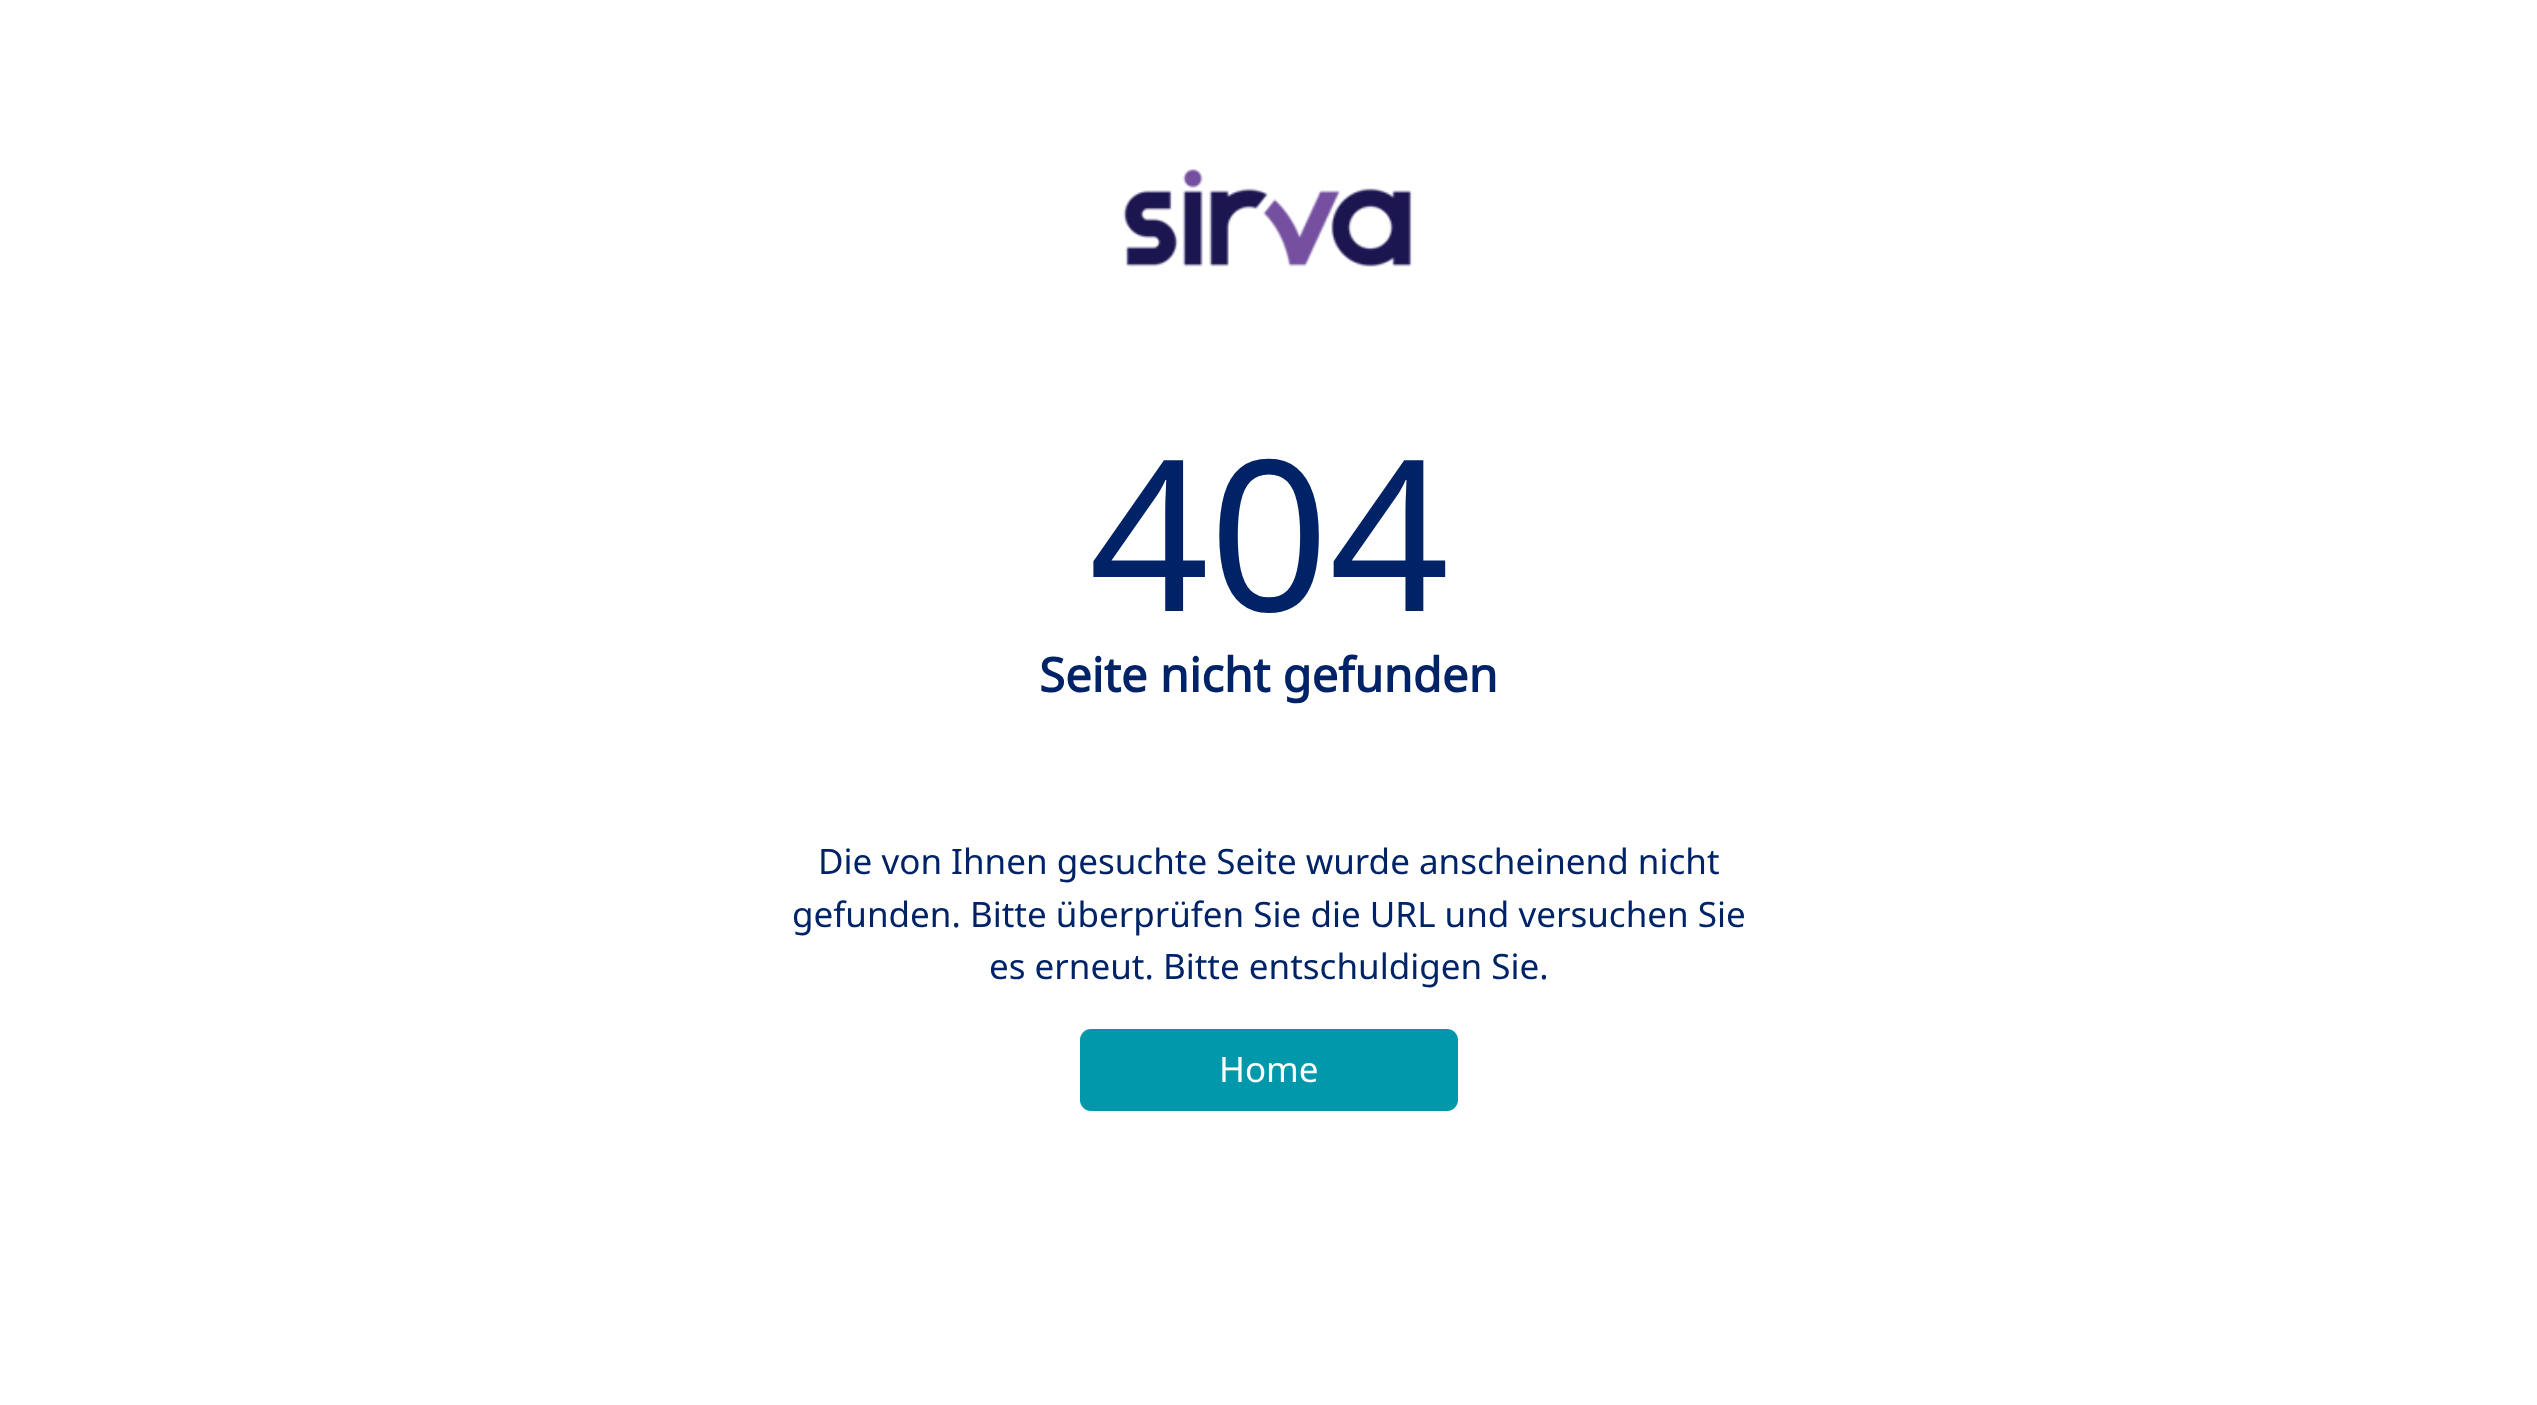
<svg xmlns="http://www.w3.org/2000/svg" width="2537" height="1405">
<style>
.a{font:210px Noto Sans;fill:#026}
.b{font:bold 47.25px Noto Sans;fill:#026}
.c{font:35px Noto Sans;fill:#026}
.d{font:35px Noto Sans;fill:#fff}
</style>
<rect width="100%" height="100%" fill="#fff"/>
<image href="1.png" x="1123" y="168" width="290" height="99"/>
<rect fill="#0098aa" x="1080" y="1029" width="378" height="82" rx="11"/>
<text class="a" x="1089" y="611">404</text>
<text class="b" x="1039" y="692">Seite nicht gefunden</text>
<text class="c" x="818" y="874">Die von Ihnen gesuchte Seite wurde anscheinend nicht</text>
<text class="c" x="792" y="927">gefunden. Bitte überprüfen Sie die URL und versuchen Sie</text>
<text class="c" x="989" y="979">es erneut. Bitte entschuldigen Sie.</text>
<text class="d" x="1219" y="1082">Home</text>
</svg>
